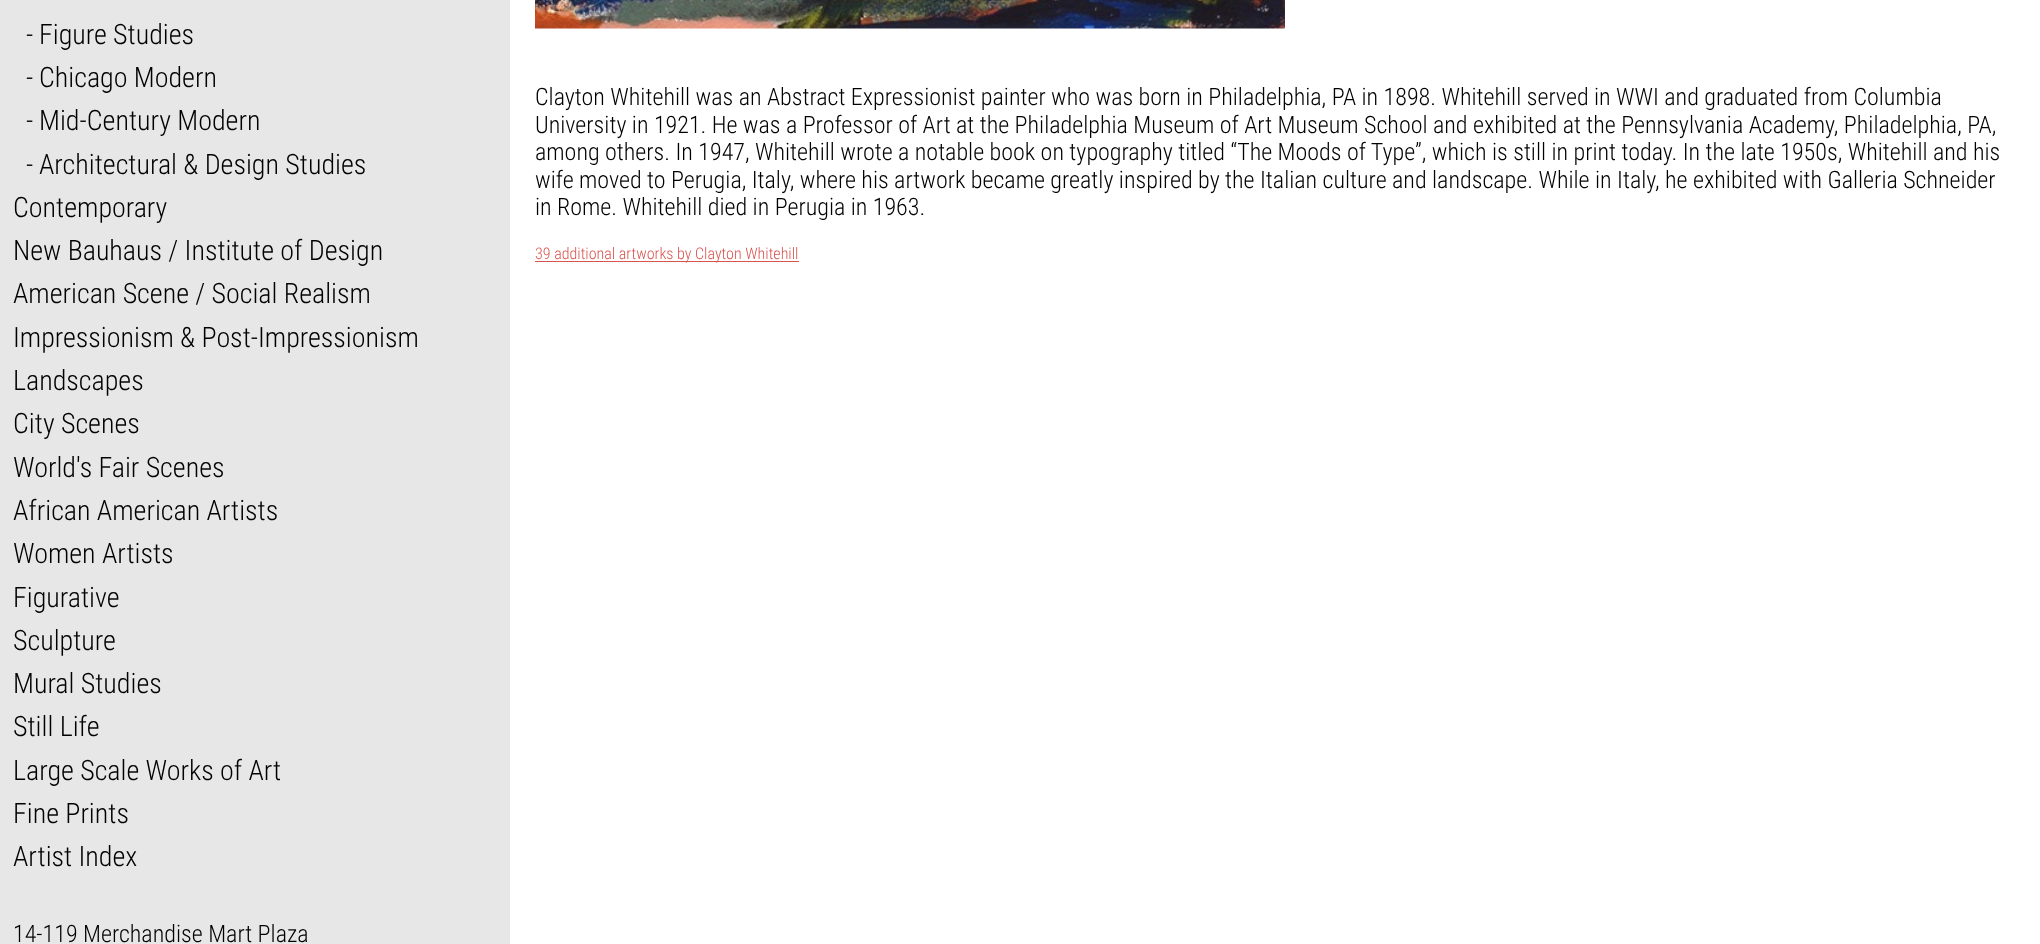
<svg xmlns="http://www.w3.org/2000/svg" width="2040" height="944">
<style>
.a{font:300 28px Roboto Condensed;fill:#000}
.b{font:300 24px Roboto Condensed;fill:#000}
.c{font:300 16px Roboto Condensed;fill:#d9534f}
</style>
<rect width="100%" height="100%" fill="#fff"/>
<path fill="#e7e7e7" d="M0 0h510v944H0z"/>
<image href="1.png" x="535" y="0" width="750" height="29"/>
<path fill="#d9534f" d="M535 261h264v1H535z"/>
<text class="a" x="26" y="44">-</text>
<text class="a" x="39" y="44">Figure Studies</text>
<text class="a" x="26" y="87">-</text>
<text class="a" x="39" y="87">Chicago Modern</text>
<text class="a" x="26" y="130">-</text>
<text class="a" x="39" y="130">Mid-Century Modern</text>
<text class="a" x="26" y="174">-</text>
<text class="a" x="39" y="174">Architectural &amp; Design Studies</text>
<text class="a" x="13" y="217">Contemporary</text>
<text class="a" x="13" y="260">New Bauhaus / Institute of Design</text>
<text class="a" x="13" y="303">American Scene / Social Realism</text>
<text class="a" x="13" y="347">Impressionism &amp; Post-Impressionism</text>
<text class="a" x="13" y="390">Landscapes</text>
<text class="a" x="13" y="433">City Scenes</text>
<text class="a" x="13" y="477">World's Fair Scenes</text>
<text class="a" x="13" y="520">African American Artists</text>
<text class="a" x="13" y="563">Women Artists</text>
<text class="a" x="13" y="607">Figurative</text>
<text class="a" x="13" y="650">Sculpture</text>
<text class="a" x="13" y="693">Mural Studies</text>
<text class="a" x="13" y="736">Still Life</text>
<text class="a" x="13" y="780">Large Scale Works of Art</text>
<text class="a" x="13" y="823">Fine Prints</text>
<text class="a" x="13" y="866">Artist Index</text>
<text class="b" x="13" y="942">14-119 Merchandise Mart Plaza</text>
<text class="b" x="535" y="105">Clayton Whitehill was an Abstract Expressionist painter who was born in Philadelphia, PA in 1898. Whitehill served in WWI and graduated from Columbia</text>
<text class="b" x="535" y="133">University in 1921. He was a Professor of Art at the Philadelphia Museum of Art Museum School and exhibited at the Pennsylvania Academy, Philadelphia, PA,</text>
<text class="b" x="535" y="160">among others. In 1947, Whitehill wrote a notable book on typography titled “The Moods of Type”, which is still in print today. In the late 1950s, Whitehill and his</text>
<text class="b" x="535" y="188">wife moved to Perugia, Italy, where his artwork became greatly inspired by the Italian culture and landscape. While in Italy, he exhibited with Galleria Schneider</text>
<text class="b" x="535" y="215">in Rome. Whitehill died in Perugia in 1963.</text>
<text class="c" x="535" y="259">39 additional artworks by Clayton Whitehill</text>
</svg>
